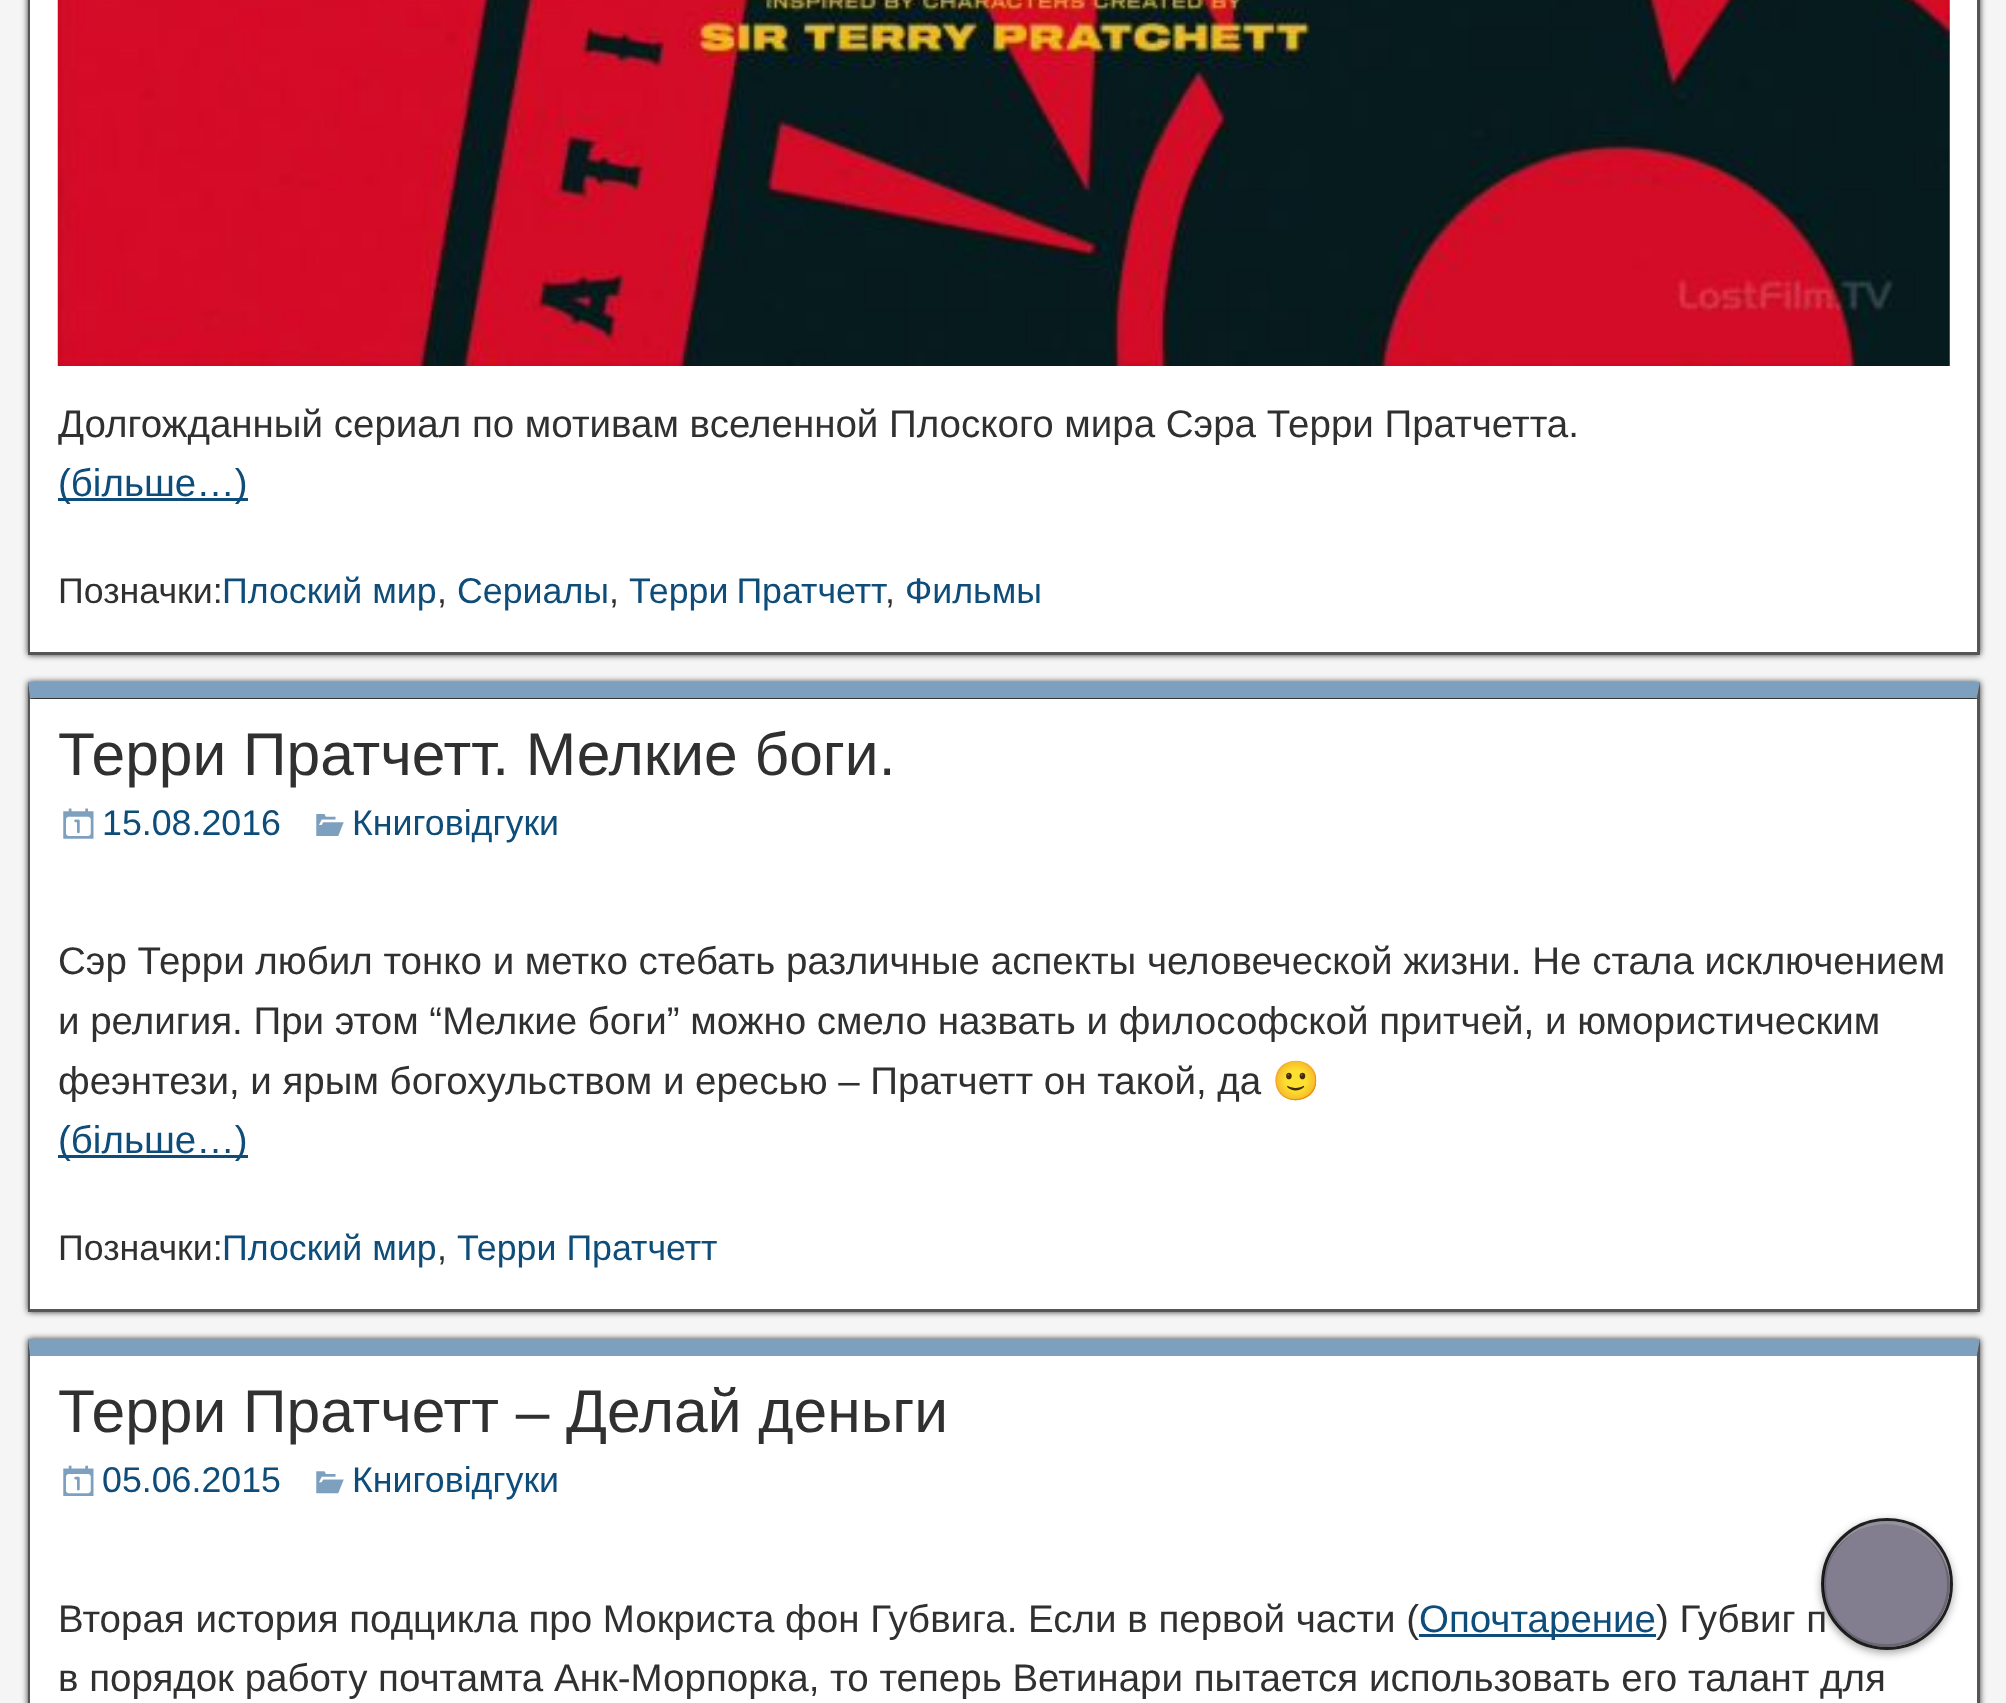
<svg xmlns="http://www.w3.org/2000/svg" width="2006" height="1703">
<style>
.a{font:38.5px Liberation Sans;fill:#303030}
.b{font:38.5px Liberation Sans;fill:#0e4d7a}
.c{font:35.75px Liberation Sans;fill:#303030}
.d{font:35.75px Liberation Sans;fill:#0e4d7a}
.e{font:60.5px Liberation Sans;fill:#303030}
.f{font:38.5px Noto Color Emoji;fill:#303030}
</style>
<defs>
<clipPath id="clip1"><path d="M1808 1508h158v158h-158zm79 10c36.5 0 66 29.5 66 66c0 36.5-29.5 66-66 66c-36.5 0-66-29.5-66-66c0-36.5 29.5-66 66-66z" clip-rule="evenodd"/></clipPath>
</defs>
<rect width="100%" height="100%" fill="#f5f5f5"/>
<path fill="#333" filter="blur(3px)" d="M28 -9h1952v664H28z"/>
<path fill="#fff" d="M30 0h1947v652H30z"/>
<path fill="#555" d="M1980-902v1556l-3-2v-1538z"/>
<path fill="#555" d="M28 652h1952v3H28z"/>
<path fill="#555" d="M28 654v-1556l2 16v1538z"/>
<image href="1.png" x="57" y="0" width="1893" height="366"/>
<path fill="#0e4d7a" d="M58 498h190v3H58z"/>
<path fill="#333" filter="blur(3px)" d="M28 682h1952v630H28z"/>
<path fill="#fff" d="M30 699h1947v610H30z"/>
<path fill="#7ea0bf" d="M28 682h1952l-3 16h-1947z"/>
<path fill="#555" d="M1980 682v630l-3-3v-611z"/>
<path fill="#555" d="M28 1309h1952v3H28z"/>
<path fill="#555" d="M28 1312v-630l2 16v611z"/>
<image href="2.png" x="63" y="808" width="31" height="31"/>
<image href="3.png" x="316" y="814" width="28" height="22"/>
<path fill="#0e4d7a" d="M58 1155h190v3H58z"/>
<path fill="#333" filter="blur(3px)" d="M28 1339h1952v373H28z"/>
<path fill="#fff" d="M30 1356h1947v347H30z"/>
<path fill="#7ea0bf" d="M28 1339h1952l-3 17h-1947z"/>
<path fill="#555" d="M1980 1339v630l-3-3v-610z"/>
<path fill="#555" d="M28 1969v-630l2 17v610z"/>
<image href="4.png" x="63" y="1465" width="31" height="31"/>
<image href="5.png" x="316" y="1471" width="28" height="23"/>
<path fill="#0e4d7a" d="M1419 1634h237v3H1419z"/>
<g clip-path="url(#clip1)">
<rect fill="#00000059" filter="blur(4px)" x="1821" y="1521" width="132" height="132" rx="66"/>
</g>
<text class="a" x="58" y="437">Долгожданный сериал по мотивам вселенной Плоского мира Сэра Терри Пратчетта.</text>
<text class="b" x="58" y="496">(більше…)</text>
<text class="c" x="58" y="603">Позначки:</text>
<text class="d" x="222" y="603">Плоский мир</text>
<text class="c" x="437" y="603">,</text>
<text class="d" x="457" y="603">Сериалы</text>
<text class="c" x="609" y="603">,</text>
<text class="d" x="629" y="603" word-spacing="-2">Терри Пратчетт</text>
<text class="c" x="885" y="603">,</text>
<text class="d" x="905" y="603">Фильмы</text>
<text class="e" x="58" y="775">Терри Пратчетт. Мелкие боги.</text>
<text class="d" x="102" y="835">15.08.2016</text>
<text class="d" x="352" y="835">Книговідгуки</text>
<text class="a" x="58" y="974">Сэр Терри любил тонко и метко стебать различные аспекты человеческой жизни. Не стала исключением</text>
<text class="a" x="58" y="1034">и религия. При этом “Мелкие боги” можно смело назвать и философской притчей, и юмористическим</text>
<text class="a" x="58" y="1094">феэнтези, и ярым богохульством и ересью – Пратчетт он такой, да</text>
<text class="f" x="1272" y="1094">🙂</text>
<text class="b" x="58" y="1153">(більше…)</text>
<text class="c" x="58" y="1260">Позначки:</text>
<text class="d" x="222" y="1260">Плоский мир</text>
<text class="c" x="437" y="1260">,</text>
<text class="d" x="457" y="1260">Терри Пратчетт</text>
<text class="e" x="58" y="1432">Терри Пратчетт – Делай деньги</text>
<text class="d" x="102" y="1492">05.06.2015</text>
<text class="d" x="352" y="1492">Книговідгуки</text>
<text class="a" x="58" y="1632">Вторая история подцикла про Мокриста фон Губвига. Если в первой части (</text>
<text class="b" x="1419" y="1632">Опочтарение</text>
<text class="a" x="1656" y="1632">) Губвиг п</text>
<text class="a" x="58" y="1691">в порядок работу почтамта Анк-Морпорка, то теперь Ветинари пытается использовать его талант для</text>
<rect fill="#716c7fe0" x="1823" y="1521" width="127" height="126" rx="63"/>
<path fill="#ffffff66" d="M1886 1524c35 0 63 27 64 62c0-14-3-26-11-37c-35-52-117-27-116 37c1-35 29-62 63-62z"/>
<rect fill="none" stroke="#0000002e" stroke-width="3" x="1824.5" y="1522.5" width="124" height="123" rx="61.5"/>
<circle fill="none" stroke="#000000e0" stroke-width="3" cx="1887" cy="1584" r="64.5"/>
</svg>
